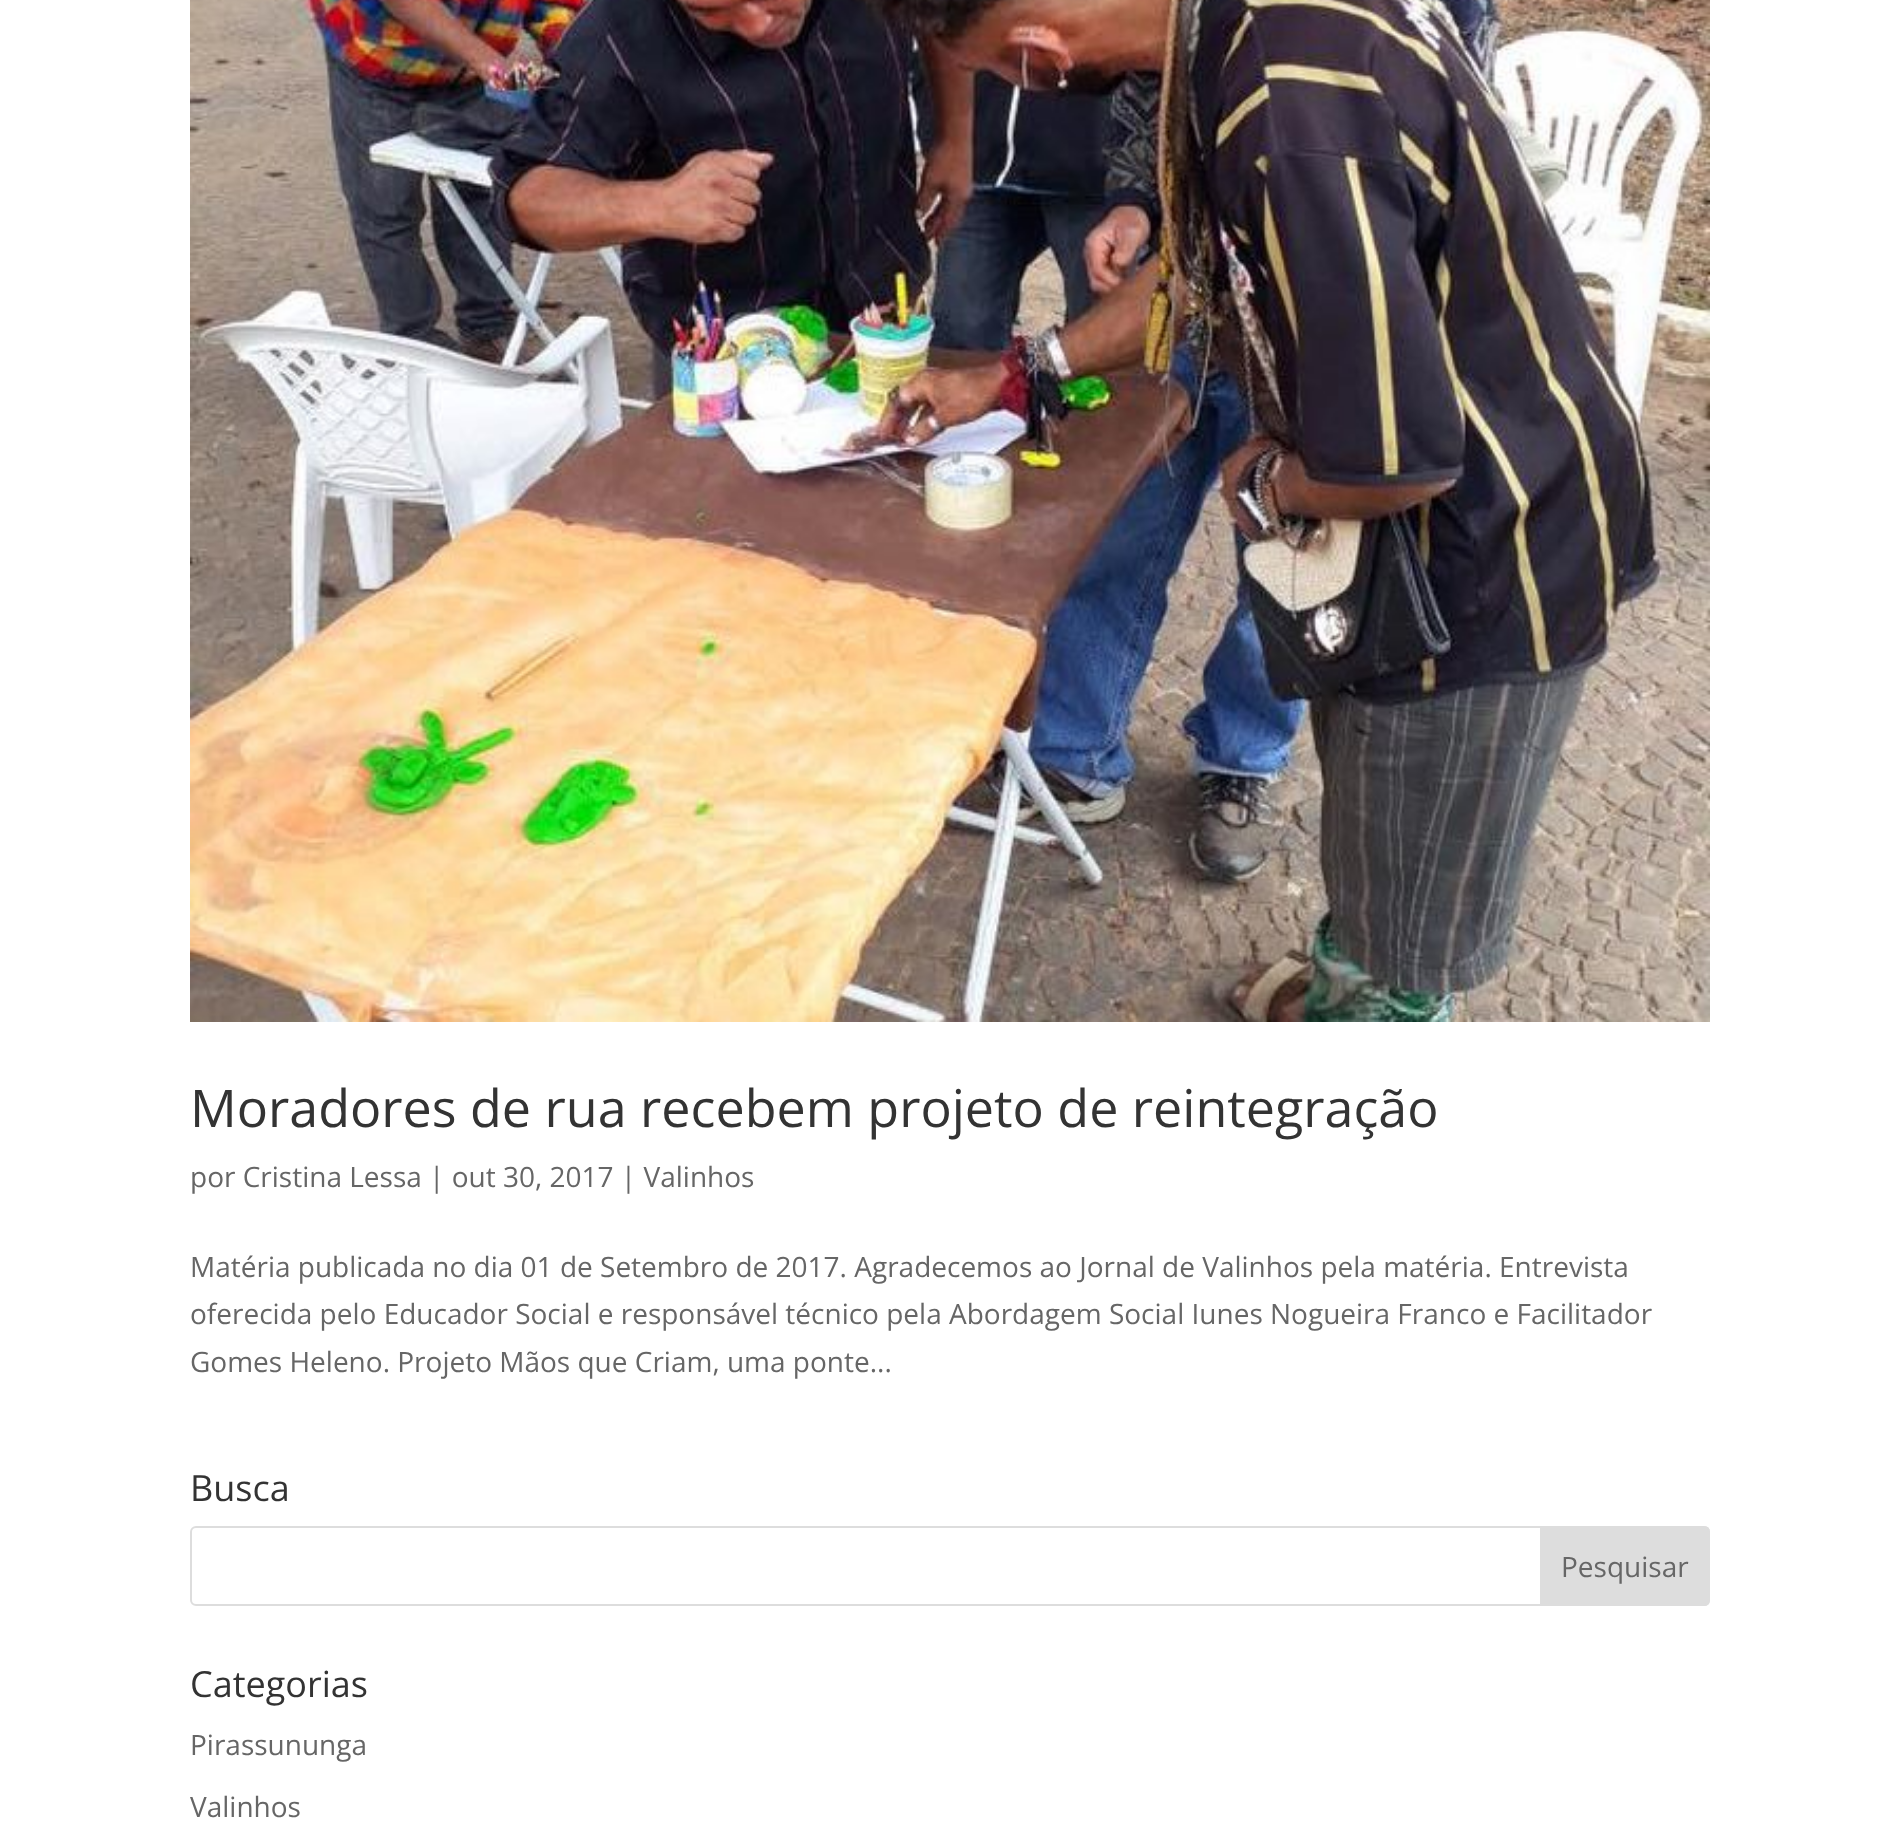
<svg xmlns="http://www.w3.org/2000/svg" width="1899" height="1838">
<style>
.a{font:52px Open Sans;fill:#333}
.b{font:28px Open Sans;fill:#666}
.c{font:36px Open Sans;fill:#333}
</style>
<rect width="100%" height="100%" fill="#fff"/>
<image href="1.png" x="190" y="0" width="1520" height="1022"/>
<rect fill="none" stroke="#ddd" stroke-width="2" x="191" y="1527" width="1518" height="78" rx="5"/>
<path fill="#ddd" stroke="#ddd" stroke-width="2" d="M1541 1527h163c3 0 5 2 5 5v68c0 3-2 5-5 5h-163z"/>
<text class="a" x="190" y="1127">Moradores de rua recebem projeto de reintegração</text>
<text class="b" x="190" y="1187">por Cristina Lessa | out 30, 2017 | Valinhos</text>
<text class="b" x="190" y="1277">Matéria publicada no dia 01 de Setembro de 2017. Agradecemos ao Jornal de Valinhos pela matéria. Entrevista</text>
<text class="b" x="190" y="1324">oferecida pelo Educador Social e responsável técnico pela Abordagem Social Iunes Nogueira Franco e Facilitador</text>
<text class="b" x="190" y="1372">Gomes Heleno. Projeto Mãos que Criam, uma ponte...</text>
<text class="c" x="190" y="1501">Busca</text>
<text class="b" x="1561" y="1577">Pesquisar</text>
<text class="c" x="190" y="1697">Categorias</text>
<text class="b" x="190" y="1755">Pirassununga</text>
<text class="b" x="190" y="1817">Valinhos</text>
</svg>
